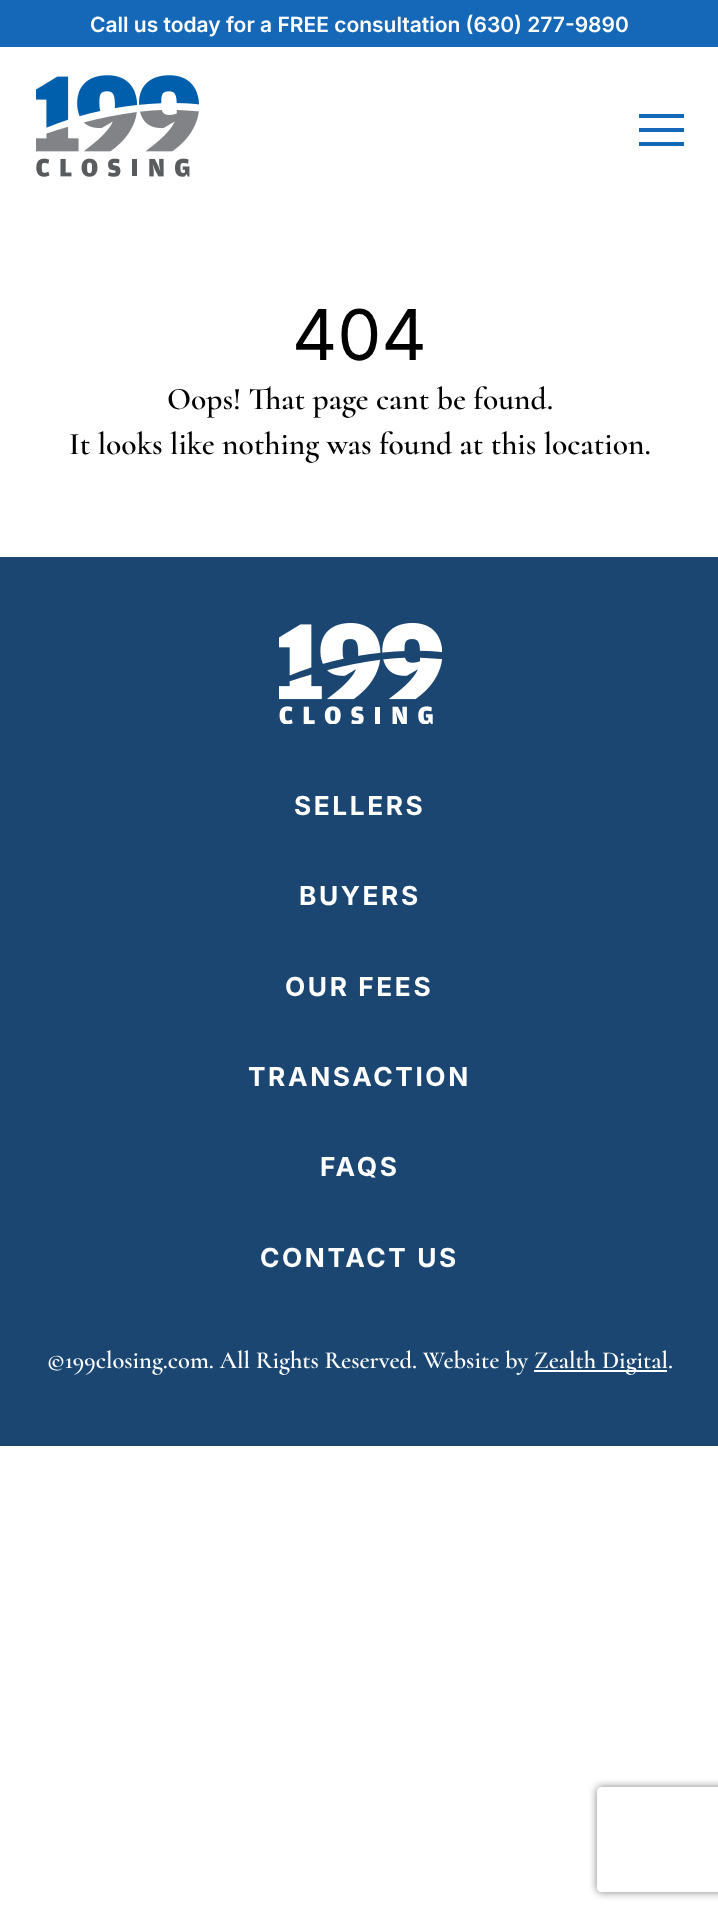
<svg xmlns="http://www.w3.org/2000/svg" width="718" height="1915">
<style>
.a{font:600 21px Inter;fill:#fff}
.b{font:70px Inter;fill:#000}
.c{font:600 31.5px Cormorant;fill:#000}
.d{font:bold 26.25px Inter;letter-spacing:2.6px;fill:#fff}
.e{font:600 24.5px Cormorant;fill:#fff}
</style>
<defs>
<clipPath id="clip1"><path d="M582 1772h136v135h-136zm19 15h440c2 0 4 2 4 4v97c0 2-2 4-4 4h-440c-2 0-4-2-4-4v-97c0-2 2-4 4-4z" clip-rule="evenodd"/></clipPath>
</defs>
<rect width="100%" height="100%" fill="#fff"/>
<path fill="#1567b7" d="M0 0h718v47H0z"/>
<image href="1.png" x="36" y="75" width="163" height="102"/>
<path fill="#1567b7" d="M639 128h45v4H639z"/>
<path fill="#1567b7" d="M639 114h45v4H639z"/>
<path fill="#1567b7" d="M639 142h45v4H639z"/>
<path fill="#1a4671" d="M0 557h718v889H0z"/>
<image href="2.png" x="279" y="623" width="163" height="101"/>
<path fill="#fff" d="M534 1370h133v2H534z"/>
<g clip-path="url(#clip1)">
<rect fill="#808080" filter="blur(4.5px)" x="597" y="1787" width="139" height="105" rx="4"/>
</g>
<text class="a" x="90" y="32">Call us today for a FREE consultation (630) 277-9890</text>
<text class="b" x="292" y="360">404</text>
<text class="c" x="167" y="409">Oops! That page cant be found.</text>
<text class="c" x="69" y="454">It looks like nothing was found at this location.</text>
<text class="d" x="294" y="815">SELLERS</text>
<text class="d" x="299" y="905">BUYERS</text>
<text class="d" x="285" y="996">OUR FEES</text>
<text class="d" x="248" y="1086">TRANSACTION</text>
<text class="d" x="320" y="1176">FAQS</text>
<text class="d" x="260" y="1267">CONTACT US</text>
<text class="e" x="47" y="1368">©199closing.com. All Rights Reserved. Website by</text>
<text class="e" x="534" y="1368">Zealth Digital.</text>
</svg>
